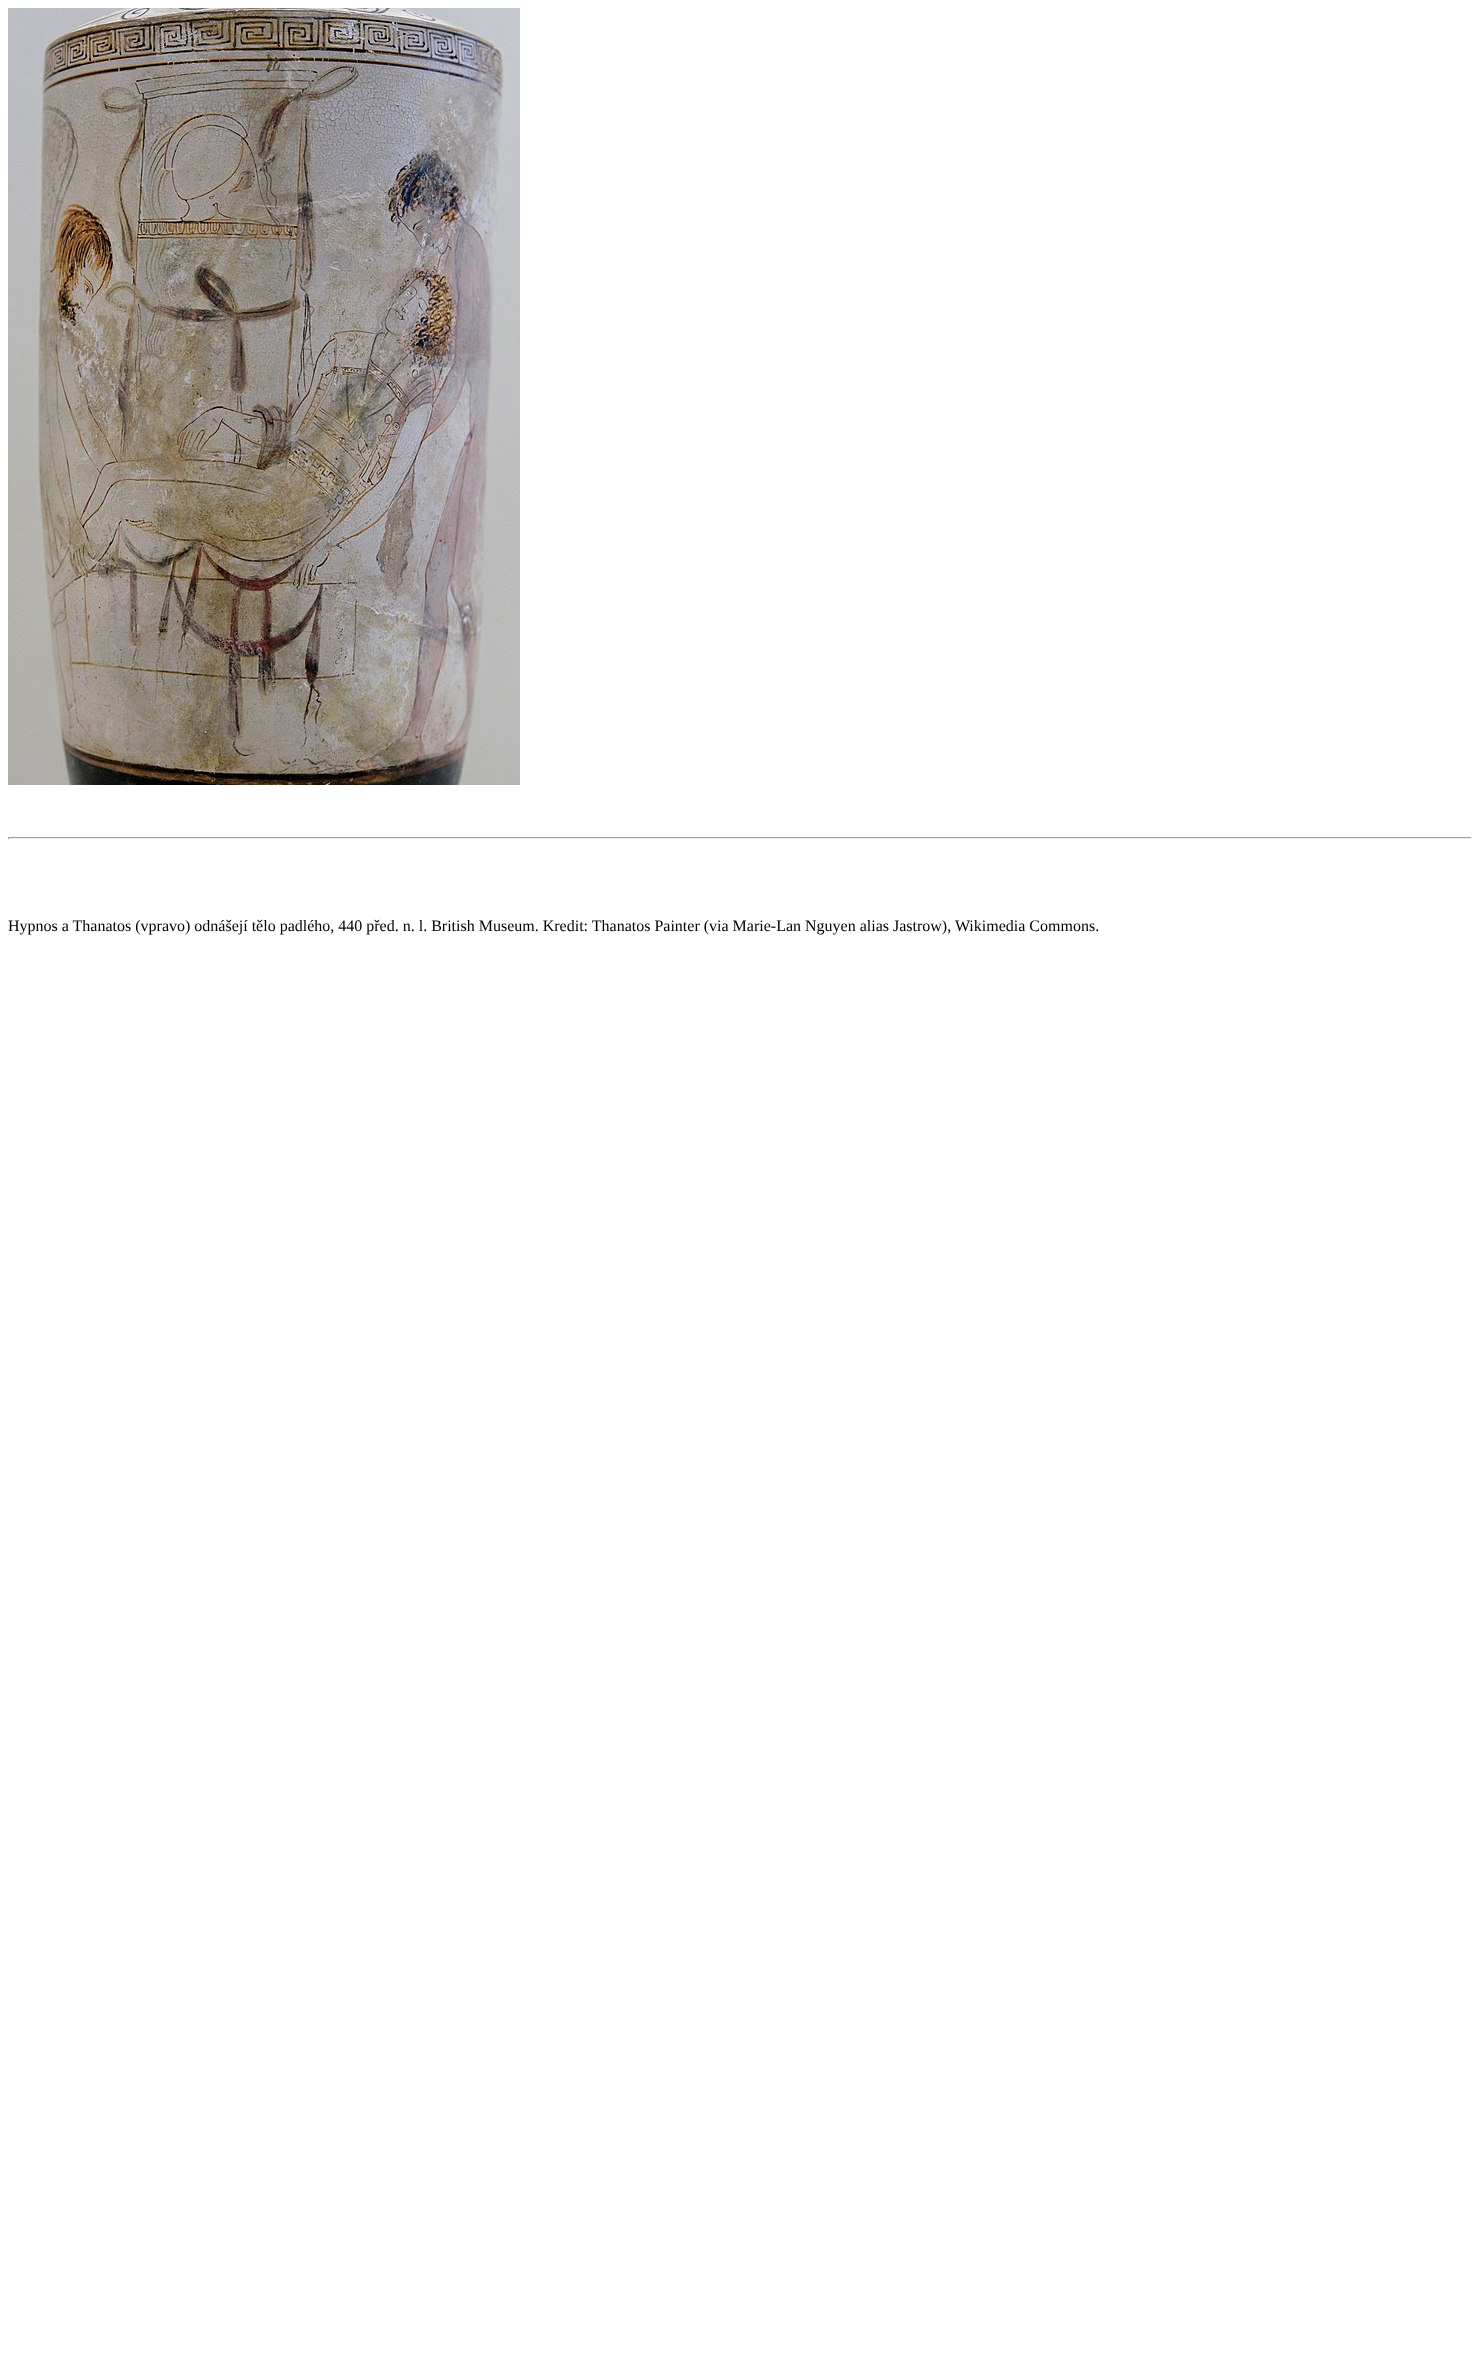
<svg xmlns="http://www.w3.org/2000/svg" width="1480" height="2357">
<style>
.a{font:16px Liberation Serif;fill:#000}
</style>
<rect width="100%" height="100%" fill="#fff"/>
<image href="1.png" x="8" y="8" width="512" height="777"/>
<path fill="#9f9f9f" d="M8 837h1464v1H8z"/>
<path fill="#eee" d="M1471 837h1v2H1471z"/>
<path fill="#eee" d="M8 838h1464v1H8z"/>
<path fill="#9f9f9f" d="M8 837h1v2H8z"/>
<text class="a" x="8" y="931">Hypnos a Thanatos (vpravo) odnášejí tělo padlého, 440 před. n. l. British Museum. Kredit: Thanatos Painter (via Marie-Lan Nguyen alias Jastrow), Wikimedia Commons.</text>
</svg>
